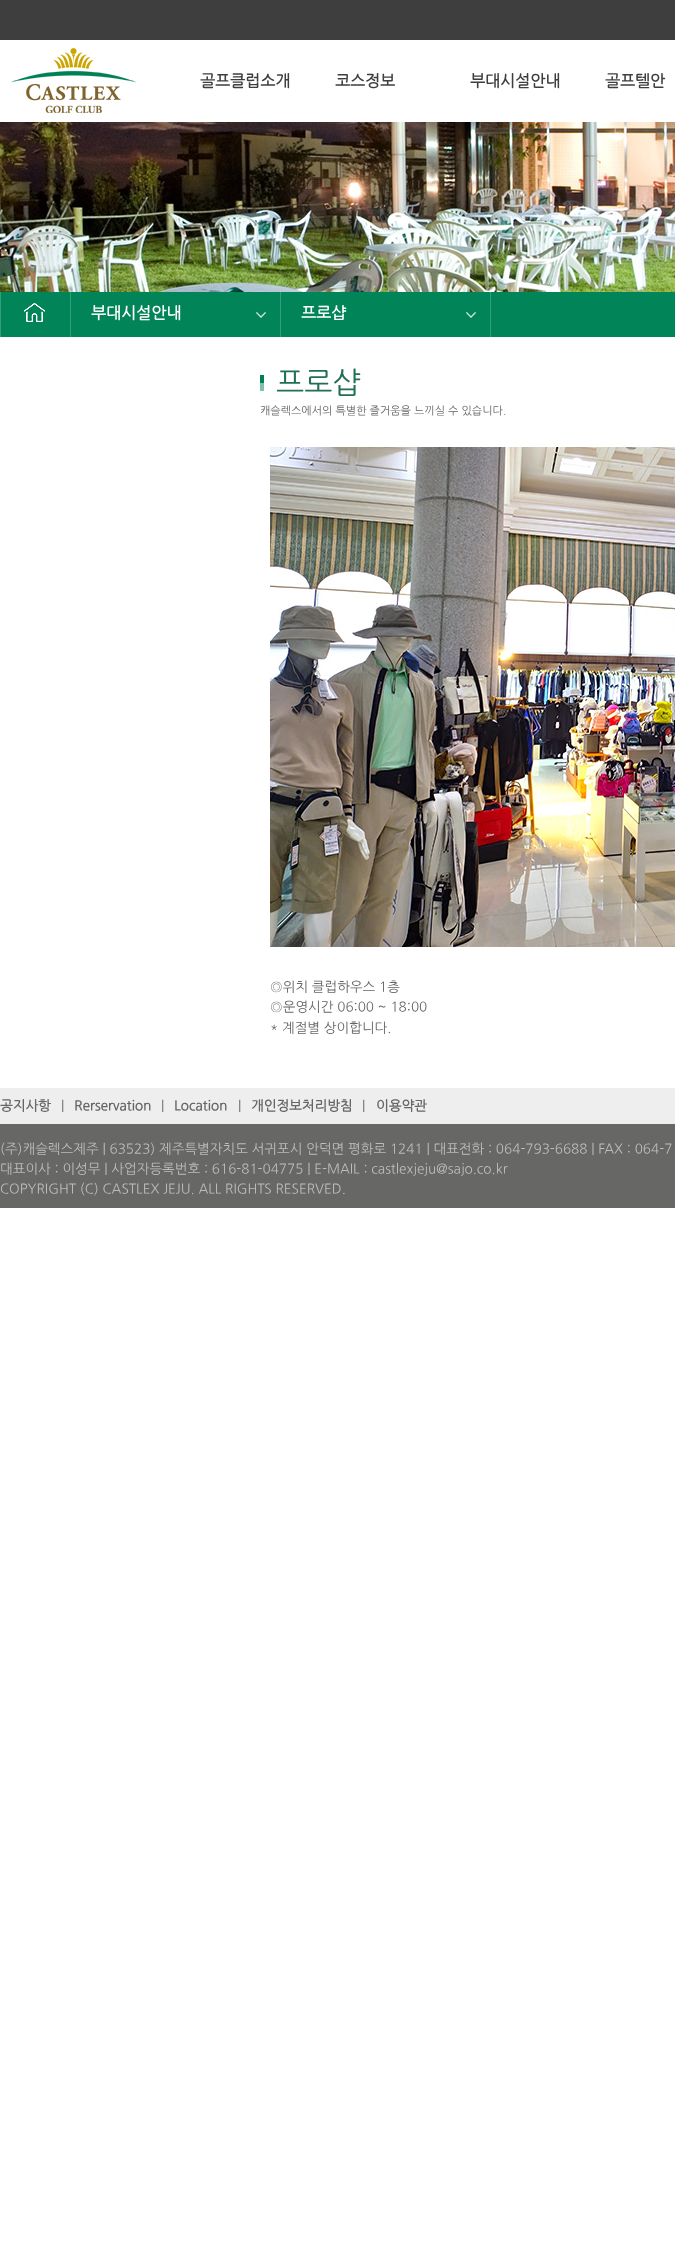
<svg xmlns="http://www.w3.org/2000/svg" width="675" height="2245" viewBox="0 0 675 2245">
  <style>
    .t1 { font: bold 16px NanumGothic; fill: #3e3e3e; }
    .t2 { font: bold 16px NanumGothic; fill: #fff; }
    .t3 { font: 30px NanumGothic; fill: #227053; }
    .t4 { font: 11px NanumGothic; fill: #666; }
    .t5 { font: 13.5px NanumGothic; fill: #666; }
    .t6 { font: bold 13.5px NanumGothic; fill: #666; }
    .t7 { font: 13.5px NanumGothic; fill: #bdbdbc; }
  </style>
  <rect width="100%" height="100%" fill="#fff"/>
  <rect x="0" y="0" width="675" height="40" fill="#3e3e3e"/>
  <image x="11" y="48" width="125" height="65" href="images/1.png"/>
  <text x="200" y="86" class="t1">골프클럽소개</text>
  <text x="335" y="86" class="t1">코스정보</text>
  <text x="470" y="86" class="t1">부대시설안내</text>
  <text x="605" y="86" class="t1">골프텔안</text>
  <image x="0" y="122" width="675" height="170" href="images/2.png"/>
  <rect x="1" y="292" width="674" height="45" fill="#018458"/>
  <rect x="0" y="292" width="1" height="45" fill="#349d79"/>
  <rect x="70" y="292" width="1" height="45" fill="#349d79"/>
  <image x="24" y="303" width="21" height="19" href="images/3.png"/>
  <rect x="280" y="292" width="1" height="45" fill="#349d79"/>
  <image x="256" y="312" width="10" height="6" href="images/4.png"/>
  <text x="91" y="318" class="t2">부대시설안내</text>
  <rect x="490" y="292" width="1" height="45" fill="#349d79"/>
  <image x="466" y="312" width="10" height="6" href="images/4.png"/>
  <text x="301" y="318" class="t2">프로샵</text>
  <image x="260" y="375" width="4" height="16" href="images/5.png"/>
  <text x="276" y="392" class="t3">프로샵</text>
  <text x="260" y="414" class="t4">캐슬렉스에서의 특별한 즐거움을 느끼실 수 있습니다.</text>
  <image x="270" y="447" width="405" height="500" href="images/6.png"/>
  <text x="270" y="991" class="t5">◎위치 클럽하우스 1층</text>
  <text x="270" y="1011" class="t5">◎운영시간 06:00 ~ 18:00</text>
  <text x="270" y="1032" class="t5">* 계절별 상이합니다.</text>
  <rect x="0" y="1124" width="675" height="84" fill="#676765"/>
  <rect x="0" y="1088" width="675" height="36" fill="#eee"/>
  <text x="0" y="1110" class="t6">공지사항</text>
  <text x="61" y="1110" class="t5">|</text>
  <text x="74" y="1110" class="t6">Rerservation</text>
  <text x="161" y="1110" class="t5">|</text>
  <text x="174" y="1110" class="t6">Location</text>
  <text x="238" y="1110" class="t5">|</text>
  <text x="251" y="1110" class="t6">개인정보처리방침</text>
  <text x="362" y="1110" class="t5">|</text>
  <text x="376" y="1110" class="t6">이용약관</text>
  <text x="0" y="1153" class="t7">(주)캐슬렉스제주 | 63523) 제주특별자치도 서귀포시 안덕면 평화로 1241 | 대표전화 : 064-793-6688 | FAX : 064-7</text>
  <text x="0" y="1173" class="t7">대표이사 : 이성무 | 사업자등록번호 : 616-81-04775 | E-MAIL : castlexjeju@sajo.co.kr</text>
  <text x="0" y="1193" class="t7">COPYRIGHT (C) CASTLEX JEJU. ALL RIGHTS RESERVED.</text>
</svg>
